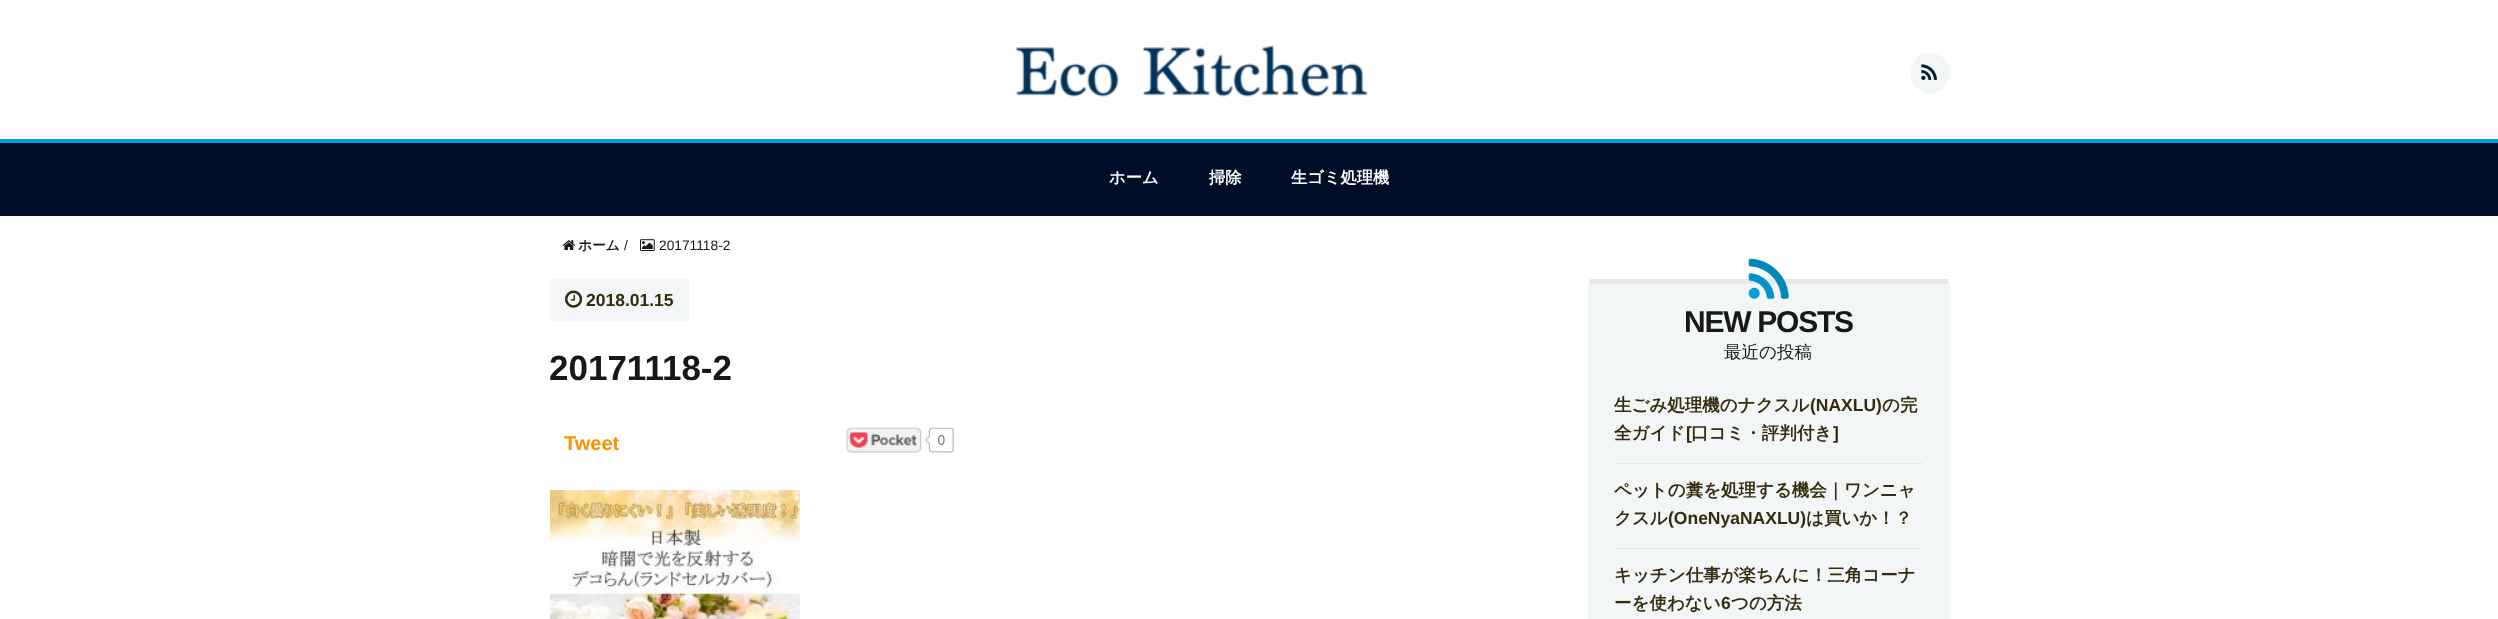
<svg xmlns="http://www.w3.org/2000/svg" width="2498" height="619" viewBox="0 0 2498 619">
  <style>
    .t1 { font: bold 16.25px WenQuanYi Zen Hei; fill: #fff; }
    .t2 { font: bold 13.75px WenQuanYi Zen Hei; fill: #181818; }
    .t3 { font: 13.75px Liberation Sans; fill: #181818; }
    .t4 { font: bold 17.5px Liberation Sans; fill: #362c0d; }
    .t5 { font: bold 35px Liberation Sans; fill: #181818; }
    .t6 { font: bold 20px Liberation Sans; fill: #f69400; }
    .t7 { font: bold 30px Liberation Sans; letter-spacing: -1.25px; fill: #181818; }
    .t8 { font: 500 17.5px WenQuanYi Zen Hei; fill: #181818; }
    .t9 { font: bold 17.5px WenQuanYi Zen Hei; fill: #362c0d; }
  </style>
  <rect width="100%" height="100%" fill="#fff"/>
  <image x="1015" y="45" width="353" height="52" href="images/1.png"/>
  <circle cx="1930" cy="73" r="20" fill="#f3f6f7"/>
  <image x="1921" y="64" width="16" height="16" href="images/2.png"/>
  <rect x="0" y="143" width="2498" height="73" fill="#000d28"/>
  <rect x="0" y="139" width="2498" height="4" fill="#009fd7"/>
  <text x="1109" y="183" class="t1">ホーム</text>
  <text x="1209" y="183" class="t1">掃除</text>
  <text x="1291" y="183" class="t1">生ゴミ処理機</text>
  <image x="562" y="240" width="13" height="10" href="images/3.png"/>
  <text x="578" y="250" class="t2">ホーム</text>
  <text x="624" y="250" class="t3">/</text>
  <image x="640" y="239" width="15" height="12" href="images/4.png"/>
  <text x="659" y="250" class="t3">20171118-2</text>
  <rect x="550" y="279" width="139" height="42" fill="#f3f6f7"/>
  <image x="565" y="290" width="18" height="18" href="images/5.png"/>
  <text x="586" y="306" class="t4">2018.01.15</text>
  <text x="549" y="380" class="t5">20171118-2</text>
  <text x="564" y="450" class="t6">Tweet</text>
  <image x="846" y="427" width="108" height="26" href="images/6.png"/>
  <image x="550" y="490" width="250" height="129" href="images/7.png"/>
  <rect x="1588" y="279" width="362" height="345" rx="5" fill="#f3f6f7"/>
  <rect x="1590" y="279" width="358" height="5" fill="#e6e9e9"/>
  <image x="1748" y="258" width="41" height="41" href="images/8.png"/>
  <text x="1684" y="332" class="t7">NEW POSTS</text>
  <text x="1724" y="358" class="t8">最近の投稿</text>
  <text x="1614" y="411" class="t9">生ごみ処理機のナクスル</text>
  <text x="1810" y="411" class="t4">(NAXLU)</text>
  <text x="1882" y="411" class="t9">の完</text>
  <text x="1614" y="439" class="t9">全ガイド</text>
  <text x="1686" y="439" class="t4">[</text>
  <text x="1691" y="439" class="t9">口コミ・評判付き</text>
  <text x="1833" y="439" class="t4">]</text>
  <rect x="1615" y="463" width="308" height="1" fill="#e6e9e9"/>
  <text x="1614" y="496" class="t9">ペットの糞を処理する機会｜ワンニャ</text>
  <text x="1614" y="524" class="t9">クスル</text>
  <text x="1668" y="524" class="t4">(OneNyaNAXLU)</text>
  <text x="1806" y="524" class="t9">は買いか！？</text>
  <rect x="1615" y="548" width="308" height="1" fill="#e6e9e9"/>
  <text x="1614" y="581" class="t9">キッチン仕事が楽ちんに！三角コーナ</text>
  <text x="1614" y="609" class="t9">ーを使わない</text>
  <text x="1721" y="609" class="t4">6</text>
  <text x="1731" y="609" class="t9">つの方法</text>
</svg>
